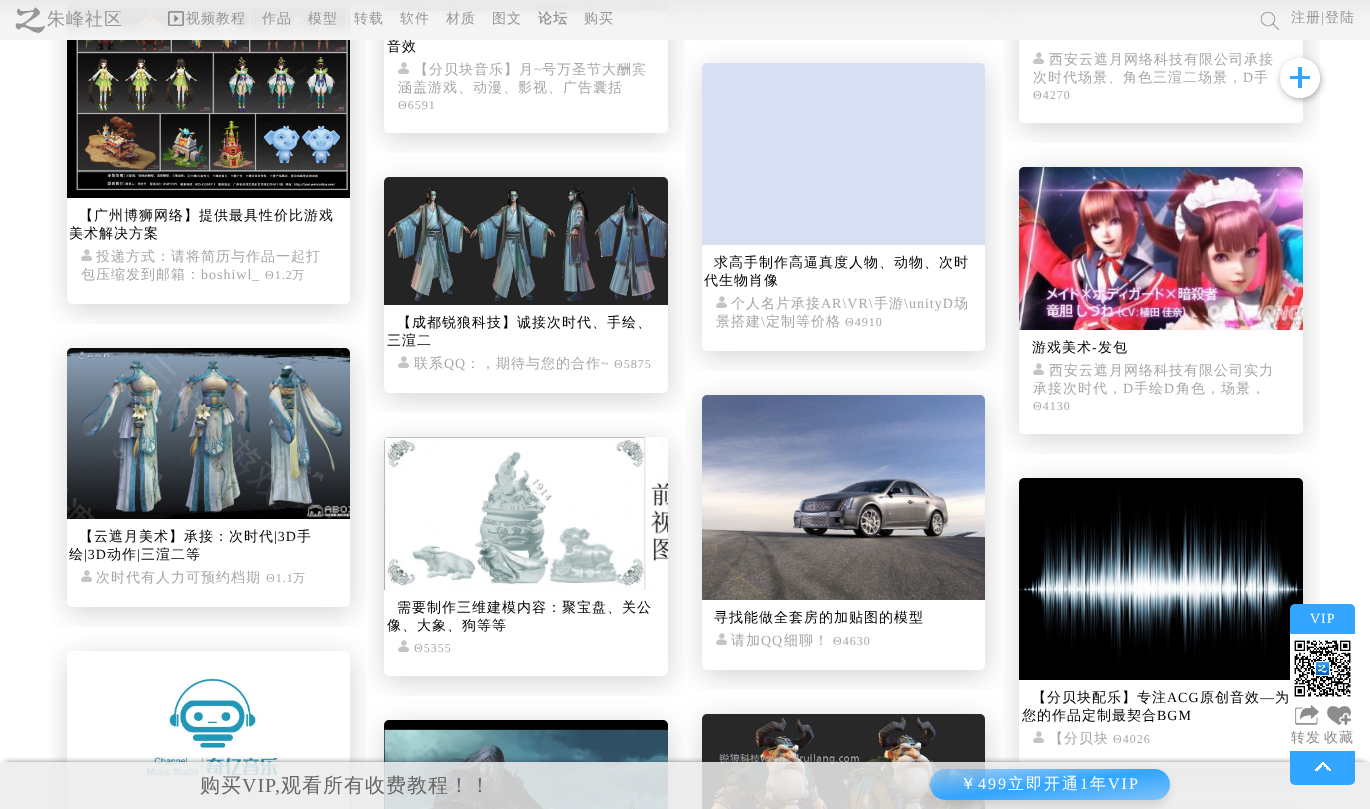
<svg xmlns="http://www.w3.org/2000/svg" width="1370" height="809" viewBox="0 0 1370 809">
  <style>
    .t1 { font: 500 14px WenQuanYi Zen Hei; letter-spacing: 1px; fill: #000; }
    .t2 { font: 500 18px WenQuanYi Zen Hei; letter-spacing: 1px; fill: #979797; }
    .t3 { font: 500 14px WenQuanYi Zen Hei; letter-spacing: 1px; fill: #979797; }
    .t4 { font: bold 14px WenQuanYi Zen Hei; letter-spacing: 1px; fill: #979797; }
    .t5 { font: 14px Liberation Serif; letter-spacing: 1px; fill: #979797; }
    .t6 { font: 500 14px WenQuanYi Zen Hei; letter-spacing: 1px; fill: #a7a7a7; }
    .t7 { font: 14px Liberation Serif; letter-spacing: 1px; fill: #a7a7a7; }
    .t8 { font: 12px Liberation Serif; letter-spacing: 1px; fill: #a7a7a7; }
    .t9 { font: 500 12px WenQuanYi Zen Hei; letter-spacing: 1px; fill: #a7a7a7; }
    .t10 { font: 14px Liberation Serif; letter-spacing: 1px; fill: #000; }
    .t11 { font: 14px Liberation Serif; letter-spacing: 1px; fill: #fff; }
    .t12 { font: 500 14px WenQuanYi Zen Hei; letter-spacing: 1px; fill: #8c8c8c; }
    .t13 { font: 500 20px WenQuanYi Zen Hei; letter-spacing: 1px; fill: #666; }
    .t14 { font: 20px Liberation Serif; letter-spacing: 1px; fill: #666; }
    .t15 { font: 500 16px WenQuanYi Zen Hei; letter-spacing: 2px; fill: #fff; }
    .t16 { font: 16px Liberation Serif; letter-spacing: 2px; fill: #fff; }
  </style>
  <defs>
    <clipPath id="clip1"><rect x="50" y="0" width="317" height="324"/></clipPath>
    <clipPath id="clip2"><rect x="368" y="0" width="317" height="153"/></clipPath>
    <clipPath id="clip3"><rect x="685" y="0" width="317" height="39"/></clipPath>
    <clipPath id="clip4"><rect x="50" y="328" width="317" height="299"/></clipPath>
    <clipPath id="clip5"><rect x="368" y="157" width="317" height="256"/></clipPath>
    <clipPath id="clip6"><rect x="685" y="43" width="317" height="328"/></clipPath>
    <clipPath id="clip7"><rect x="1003" y="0" width="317" height="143"/></clipPath>
    <linearGradient id="g1" gradientUnits="userSpaceOnUse" x1="685" y1="0" x2="685" y2="40"><stop offset="0" stop-color="#eaeaea"/><stop offset="0.5" stop-color="#f3f3f3" stop-opacity="0.94"/><stop offset="1" stop-color="#f5f5f5"/></linearGradient>
    <clipPath id="clip8"><rect x="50" y="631" width="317" height="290"/></clipPath>
    <clipPath id="clip9"><rect x="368" y="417" width="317" height="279"/></clipPath>
    <clipPath id="clip10"><rect x="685" y="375" width="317" height="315"/></clipPath>
    <clipPath id="clip11"><rect x="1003" y="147" width="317" height="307"/></clipPath>
    <clipPath id="clip12"><rect x="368" y="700" width="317" height="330"/></clipPath>
    <clipPath id="clip13"><rect x="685" y="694" width="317" height="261"/></clipPath>
    <clipPath id="clip14"><rect x="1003" y="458" width="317" height="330"/></clipPath>
    <clipPath id="clip15"><rect x="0" y="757" width="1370" height="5"/></clipPath>
    <clipPath id="clip16"><path d="M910 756H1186V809H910ZM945.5 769H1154.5C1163 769 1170 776 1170 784.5C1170 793 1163 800 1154.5 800H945.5C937 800 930 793 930 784.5C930 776 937 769 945.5 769Z" clip-rule="evenodd"/></clipPath>
    <linearGradient id="g2" gradientUnits="userSpaceOnUse" x1="1046" y1="754" x2="1054" y2="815"><stop offset="0" stop-color="#32a5ff" stop-opacity="0.37"/><stop offset="0.5" stop-color="#32a5ff"/><stop offset="1" stop-color="#32a5ff" stop-opacity="0.59"/></linearGradient>
  </defs>
  <rect width="100%" height="100%" fill="#fff"/>
  <g clip-path="url(#clip1)">
    <rect x="68" y="-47" width="283" height="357" rx="5" fill="#0000002b" filter="blur(14px)"/>
  </g>
  <rect x="67" y="-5" width="283" height="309" rx="5" fill="#fff"/>
  <image x="67" y="2" width="283" height="196" href="images/6.png"/>
  <g clip-path="url(#clip2)">
    <rect x="385" y="-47" width="284" height="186" rx="5" fill="#0000002b" filter="blur(14px)"/>
  </g>
  <rect x="384" y="-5" width="284" height="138" rx="5" fill="#fff"/>
  <image x="384" y="2" width="284" height="9" href="images/4.png"/>
  <text x="387" y="51" class="t1">音效</text>
  <g clip-path="url(#clip3)">
    <rect x="703" y="-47" width="283" height="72" rx="5" fill="#0000002b" filter="blur(14px)"/>
  </g>
  <rect x="702" y="-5" width="283" height="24" rx="5" fill="#fff"/>
  <g clip-path="url(#clip4)">
    <rect x="68" y="354" width="283" height="259" rx="5" fill="#0000002b" filter="blur(14px)"/>
  </g>
  <rect x="67" y="348" width="283" height="259" rx="5" fill="#fff"/>
  <image x="67" y="348" width="283" height="171" href="images/10.png"/>
  <g clip-path="url(#clip5)">
    <rect x="385" y="183" width="284" height="216" rx="5" fill="#0000002b" filter="blur(14px)"/>
  </g>
  <rect x="384" y="177" width="284" height="216" rx="5" fill="#fff"/>
  <image x="384" y="177" width="284" height="128" href="images/8.png"/>
  <g clip-path="url(#clip6)">
    <rect x="703" y="69" width="283" height="288" rx="5" fill="#0000002b" filter="blur(14px)"/>
  </g>
  <rect x="702" y="63" width="283" height="288" rx="5" fill="#fff"/>
  <image x="702" y="63" width="283" height="182" href="images/7.png"/>
  <g clip-path="url(#clip7)">
    <rect x="1020" y="-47" width="284" height="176" rx="5" fill="#0000002b" filter="blur(14px)"/>
  </g>
  <rect x="1019" y="-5" width="284" height="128" rx="5" fill="#fff"/>
  <rect x="0" y="0" width="1370" height="40" fill="url(#g1)"/>
  <image x="15" y="7" width="31" height="26" href="images/1.png"/>
  <text x="47" y="25" class="t2">朱峰社区</text>
  <image x="168" y="11" width="16" height="15" href="images/2.png"/>
  <text x="186" y="23" class="t3">视频教程</text>
  <text x="262" y="23" class="t3">作品</text>
  <text x="308" y="23" class="t3">模型</text>
  <text x="354" y="23" class="t3">转载</text>
  <text x="400" y="23" class="t3">软件</text>
  <text x="446" y="23" class="t3">材质</text>
  <text x="492" y="23" class="t3">图文</text>
  <text x="538" y="23" class="t4">论坛</text>
  <text x="584" y="23" class="t3">购买</text>
  <image x="1260" y="11" width="20" height="20" href="images/3.png"/>
  <text x="1291" y="22" class="t3">注册</text>
  <text x="1321" y="22" class="t5">|</text>
  <text x="1325" y="22" class="t3">登陆</text>
  <image x="398" y="62" width="11" height="12" href="images/5.png"/>
  <text x="414" y="74" class="t6">【分贝块音乐】月</text>
  <text x="534" y="74" class="t7">~</text>
  <text x="542" y="74" class="t6">号万圣节大酬宾</text>
  <text x="398" y="92" class="t6">涵盖游戏、动漫、影视、广告囊括</text>
  <text x="398" y="109" class="t8">Θ6591</text>
  <image x="1033" y="52" width="11" height="12" href="images/5.png"/>
  <text x="1049" y="64" class="t6">西安云遮月网络科技有限公司承接</text>
  <text x="1033" y="82" class="t6">次时代场景、角色三渲二场景，</text>
  <text x="1243" y="82" class="t7">D</text>
  <text x="1254" y="82" class="t6">手</text>
  <text x="1033" y="99" class="t8">Θ4270</text>
  <text x="79" y="220" class="t1">【广州博狮网络】提供最具性价比游戏</text>
  <text x="69" y="238" class="t1">美术解决方案</text>
  <image x="81" y="249" width="11" height="12" href="images/5.png"/>
  <text x="96" y="261" class="t6">投递方式：请将简历与作品一起打</text>
  <text x="81" y="279" class="t6">包压缩发到邮箱：</text>
  <text x="201" y="279" class="t7">boshiwl_</text>
  <text x="265" y="279" class="t8">Θ1.2</text>
  <text x="292" y="279" class="t9">万</text>
  <text x="714" y="267" class="t1">求高手制作高逼真度人物、动物、次时</text>
  <text x="704" y="285" class="t1">代生物肖像</text>
  <image x="716" y="296" width="11" height="12" href="images/5.png"/>
  <text x="731" y="308" class="t6">个人名片承接</text>
  <text x="821" y="308" class="t7">AR\VR\</text>
  <text x="874" y="308" class="t6">手游</text>
  <text x="904" y="308" class="t7">\unityD</text>
  <text x="954" y="308" class="t6">场</text>
  <text x="716" y="326" class="t6">景搭建</text>
  <text x="761" y="326" class="t7">\</text>
  <text x="766" y="326" class="t6">定制等价格</text>
  <text x="845" y="326" class="t8">Θ4910</text>
  <text x="397" y="327" class="t1">【成都锐狼科技】诚接次时代、手绘、</text>
  <text x="387" y="345" class="t1">三渲二</text>
  <image x="398" y="356" width="11" height="12" href="images/5.png"/>
  <text x="414" y="368" class="t6">联系</text>
  <text x="444" y="368" class="t7">QQ</text>
  <text x="466" y="368" class="t6">：，期待与您的合作</text>
  <text x="601" y="368" class="t7">~</text>
  <text x="614" y="368" class="t8">Θ5875</text>
  <g clip-path="url(#clip8)">
    <rect x="68" y="657" width="283" height="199" rx="5" fill="#0000002b" filter="blur(14px)"/>
  </g>
  <rect x="67" y="651" width="283" height="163" rx="5" fill="#fff"/>
  <g clip-path="url(#clip9)">
    <rect x="385" y="443" width="284" height="239" rx="5" fill="#0000002b" filter="blur(14px)"/>
  </g>
  <rect x="384" y="437" width="284" height="239" rx="5" fill="#fff"/>
  <image x="384" y="437" width="284" height="153" href="images/12.png"/>
  <g clip-path="url(#clip10)">
    <rect x="703" y="401" width="283" height="275" rx="5" fill="#0000002b" filter="blur(14px)"/>
  </g>
  <rect x="702" y="395" width="283" height="275" rx="5" fill="#fff"/>
  <image x="702" y="395" width="283" height="205" href="images/13.png"/>
  <g clip-path="url(#clip11)">
    <rect x="1020" y="173" width="284" height="267" rx="5" fill="#0000002b" filter="blur(14px)"/>
  </g>
  <rect x="1019" y="167" width="284" height="267" rx="5" fill="#fff"/>
  <image x="1019" y="167" width="284" height="163" href="images/9.png"/>
  <text x="1032" y="352" class="t1">游戏美术</text>
  <text x="1092" y="352" class="t10">-</text>
  <text x="1098" y="352" class="t1">发包</text>
  <image x="1033" y="363" width="11" height="12" href="images/5.png"/>
  <text x="1049" y="375" class="t6">西安云遮月网络科技有限公司实力</text>
  <text x="1033" y="393" class="t6">承接次时代，</text>
  <text x="1123" y="393" class="t7">D</text>
  <text x="1134" y="393" class="t6">手绘</text>
  <text x="1164" y="393" class="t7">D</text>
  <text x="1176" y="393" class="t6">角色，场景，</text>
  <text x="1033" y="410" class="t8">Θ4130</text>
  <text x="79" y="541" class="t1">【云遮月美术】承接：次时代</text>
  <text x="274" y="541" class="t10">|3D</text>
  <text x="297" y="541" class="t1">手</text>
  <text x="69" y="559" class="t1">绘</text>
  <text x="84" y="559" class="t10">|3D</text>
  <text x="107" y="559" class="t1">动作</text>
  <text x="137" y="559" class="t10">|</text>
  <text x="141" y="559" class="t1">三渲二等</text>
  <image x="81" y="570" width="11" height="12" href="images/5.png"/>
  <text x="96" y="582" class="t6">次时代有人力可预约档期</text>
  <text x="266" y="582" class="t8">Θ1.1</text>
  <text x="293" y="582" class="t9">万</text>
  <image x="146" y="677" width="134" height="101" href="images/11.png"/>
  <text x="397" y="612" class="t1">需要制作三维建模内容：聚宝盘、关公</text>
  <text x="387" y="630" class="t1">像、大象、狗等等</text>
  <image x="398" y="640" width="11" height="12" href="images/5.png"/>
  <text x="414" y="652" class="t8">Θ5355</text>
  <text x="714" y="622" class="t1">寻找能做全套房的加贴图的模型</text>
  <image x="716" y="633" width="11" height="12" href="images/5.png"/>
  <text x="731" y="645" class="t6">请加</text>
  <text x="761" y="645" class="t7">QQ</text>
  <text x="784" y="645" class="t6">细聊！</text>
  <text x="833" y="645" class="t8">Θ4630</text>
  <g clip-path="url(#clip12)">
    <rect x="385" y="726" width="284" height="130" rx="5" fill="#0000002b" filter="blur(14px)"/>
  </g>
  <image x="384" y="720" width="284" height="89" href="images/14.png"/>
  <g clip-path="url(#clip13)">
    <rect x="703" y="720" width="283" height="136" rx="5" fill="#0000002b" filter="blur(14px)"/>
  </g>
  <image x="702" y="714" width="283" height="95" href="images/15.png"/>
  <g clip-path="url(#clip14)">
    <rect x="1020" y="484" width="284" height="290" rx="5" fill="#0000002b" filter="blur(14px)"/>
  </g>
  <rect x="1019" y="478" width="284" height="290" rx="5" fill="#fff"/>
  <image x="1019" y="478" width="284" height="202" href="images/16.png"/>
  <text x="1032" y="702" class="t1">【分贝块配乐】专注</text>
  <text x="1167" y="702" class="t10">ACG</text>
  <text x="1200" y="702" class="t1">原创音效</text>
  <text x="1260" y="702" class="t10">—</text>
  <text x="1275" y="702" class="t1">为</text>
  <text x="1022" y="720" class="t1">您的作品定制最契合</text>
  <text x="1157" y="720" class="t10">BGM</text>
  <image x="1033" y="731" width="11" height="12" href="images/5.png"/>
  <text x="1049" y="743" class="t6">【分贝块</text>
  <text x="1113" y="743" class="t8">Θ4026</text>
  <rect x="1020" y="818" width="284" height="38" rx="5" fill="#0000002b" filter="blur(14px)"/>
  <rect x="1283" y="62" width="36" height="36" rx="18" fill="#777" filter="blur(4px)"/>
  <circle cx="1300" cy="78" r="20" fill="#fff"/>
  <image x="1281" y="58" width="39" height="40" href="images/17.png"/>
  <g clip-path="url(#clip15)">
    <rect x="5" y="764" width="1360" height="37" fill="#272727" filter="blur(3.5px)"/>
  </g>
  <rect x="0" y="762" width="1370" height="47" fill="#ebebebdb"/>
  <rect x="1290" y="604" width="65" height="181" rx="5" fill="#31a5ff"/>
  <text x="1310" y="623" class="t11">VIP</text>
  <rect x="1290" y="634" width="65" height="117" fill="#fff"/>
  <image x="1294" y="640" width="57" height="57" href="images/18.png"/>
  <image x="1295" y="705" width="24" height="20" href="images/19.png"/>
  <text x="1291" y="742" class="t12">转发</text>
  <image x="1327" y="706" width="24" height="19" href="images/20.png"/>
  <text x="1324" y="742" class="t12">收藏</text>
  <image x="1315" y="762" width="16" height="9" href="images/21.png"/>
  <text x="200" y="792" class="t13">购买</text>
  <text x="242" y="792" class="t14">VIP,</text>
  <text x="281" y="792" class="t13">观看所有收费教程！！</text>
  <g clip-path="url(#clip16)">
    <rect x="928" y="774" width="240" height="31" rx="15.5" fill="#00000021" filter="blur(5.5px)"/>
  </g>
  <rect x="930" y="769" width="240" height="31" rx="15.5" fill="url(#g2)"/>
  <text x="960" y="789" class="t15">￥</text>
  <text x="978" y="789" class="t16">499</text>
  <text x="1008" y="789" class="t15">立即开通</text>
  <text x="1080" y="789" class="t16">1</text>
  <text x="1090" y="789" class="t15">年</text>
  <text x="1108" y="789" class="t16">VIP</text>
</svg>
